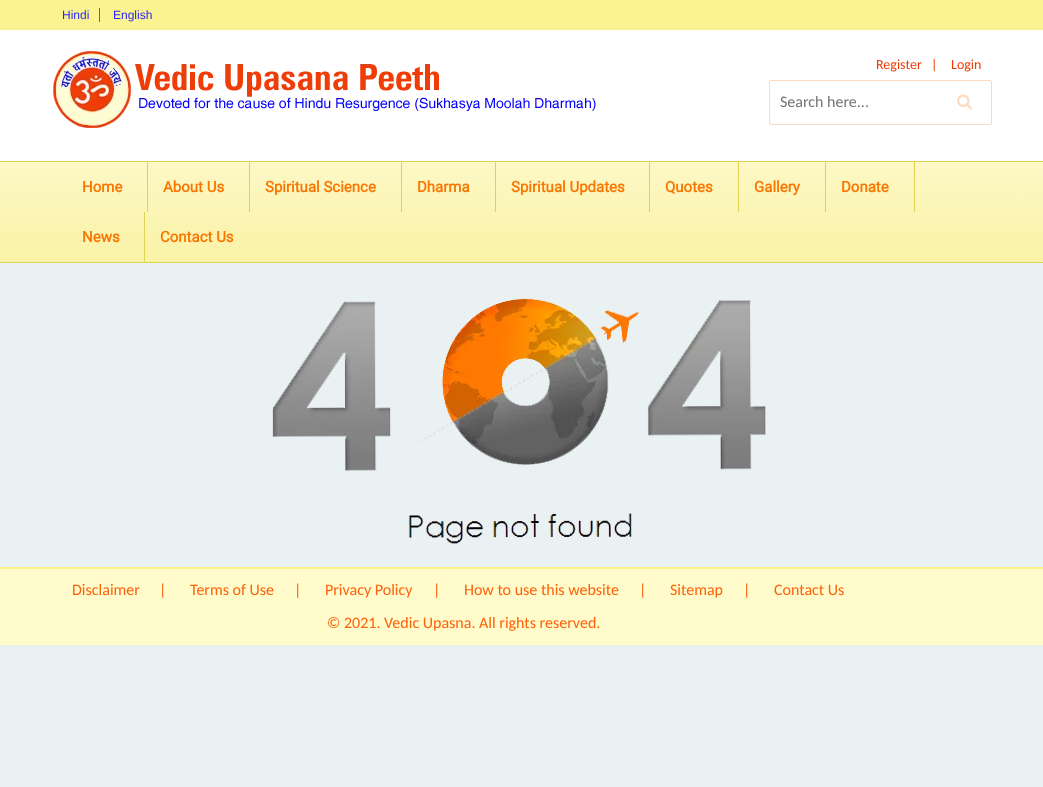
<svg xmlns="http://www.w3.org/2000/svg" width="1043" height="787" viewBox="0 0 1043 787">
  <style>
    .t1 { font: 12px Liberation Sans; fill: #2828f9; }
    .t2 { font: 14px Carlito; fill: #ef3d08; }
    .t3 { font: 16px Carlito; fill: #757575; }
    .t4 { font: bold 15px Roboto; fill: #f97602; }
    .t5 { font: 16px Carlito; fill: #fe610b; }
  </style>
  <defs>
    <linearGradient id="g1" gradientUnits="userSpaceOnUse" x1="522" y1="162" x2="522" y2="262"><stop offset="0" stop-color="#fdf8c6"/><stop offset="1" stop-color="#f9f2a6"/></linearGradient>
  </defs>
  <rect width="100%" height="100%" fill="#e9f1f3"/>
  <rect x="0" y="0" width="1043" height="30" fill="#fbf291"/>
  <text x="62" y="19" class="t1">Hindi</text>
  <rect x="99" y="8" width="1" height="14" fill="#5d5bdf"/>
  <text x="113" y="19" class="t1">English</text>
  <rect x="0" y="30" width="1043" height="131" fill="#fff"/>
  <image x="53" y="50" width="543" height="78" href="images/1.png"/>
  <text x="876" y="69" class="t2">Register</text>
  <text x="931" y="69" class="t2">|</text>
  <text x="951" y="69" class="t2">Login</text>
  <rect x="769.5" y="80.5" width="222" height="44" rx="1.5" fill="none" stroke="#fddabf"/>
  <text x="780" y="107" class="t3">Search here...</text>
  <image x="957" y="94" width="15" height="16" href="images/2.png"/>
  <rect x="0" y="162" width="1043" height="100" fill="url(#g1)"/>
  <rect x="0" y="161" width="1043" height="1" fill="#dfd452"/>
  <rect x="0" y="262" width="1043" height="1" fill="#dfd452"/>
  <rect x="147" y="162" width="1" height="50" fill="#dfd452"/>
  <text x="82" y="192" class="t4">Home</text>
  <rect x="249" y="162" width="1" height="50" fill="#dfd452"/>
  <text x="163" y="192" class="t4">About Us</text>
  <rect x="401" y="162" width="1" height="50" fill="#dfd452"/>
  <text x="265" y="192" class="t4">Spiritual Science</text>
  <rect x="495" y="162" width="1" height="50" fill="#dfd452"/>
  <text x="417" y="192" class="t4">Dharma</text>
  <rect x="649" y="162" width="1" height="50" fill="#dfd452"/>
  <text x="511" y="192" class="t4">Spiritual Updates</text>
  <rect x="738" y="162" width="1" height="50" fill="#dfd452"/>
  <text x="665" y="192" class="t4">Quotes</text>
  <rect x="825" y="162" width="1" height="50" fill="#dfd452"/>
  <text x="754" y="192" class="t4">Gallery</text>
  <rect x="914" y="162" width="1" height="50" fill="#dfd452"/>
  <text x="841" y="192" class="t4">Donate</text>
  <rect x="144" y="212" width="1" height="50" fill="#dfd452"/>
  <text x="82" y="242" class="t4">News</text>
  <text x="160" y="242" class="t4">Contact Us</text>
  <image x="272" y="298" width="494" height="246" href="images/3.png"/>
  <rect x="0" y="569" width="1043" height="76" fill="#fffbca"/>
  <rect x="0" y="567" width="1043" height="2" fill="#fcf389"/>
  <text x="72" y="595" class="t5">Disclaimer</text>
  <text x="159" y="595" class="t5">|</text>
  <text x="190" y="595" class="t5">Terms of Use</text>
  <text x="294" y="595" class="t5">|</text>
  <text x="325" y="595" class="t5">Privacy Policy</text>
  <text x="433" y="595" class="t5">|</text>
  <text x="464" y="595" class="t5">How to use this website</text>
  <text x="639" y="595" class="t5">|</text>
  <text x="670" y="595" class="t5">Sitemap</text>
  <text x="743" y="595" class="t5">|</text>
  <text x="774" y="595" class="t5">Contact Us</text>
  <text x="327" y="628" class="t5">© 2021. Vedic Upasna. All rights reserved.</text>
</svg>
